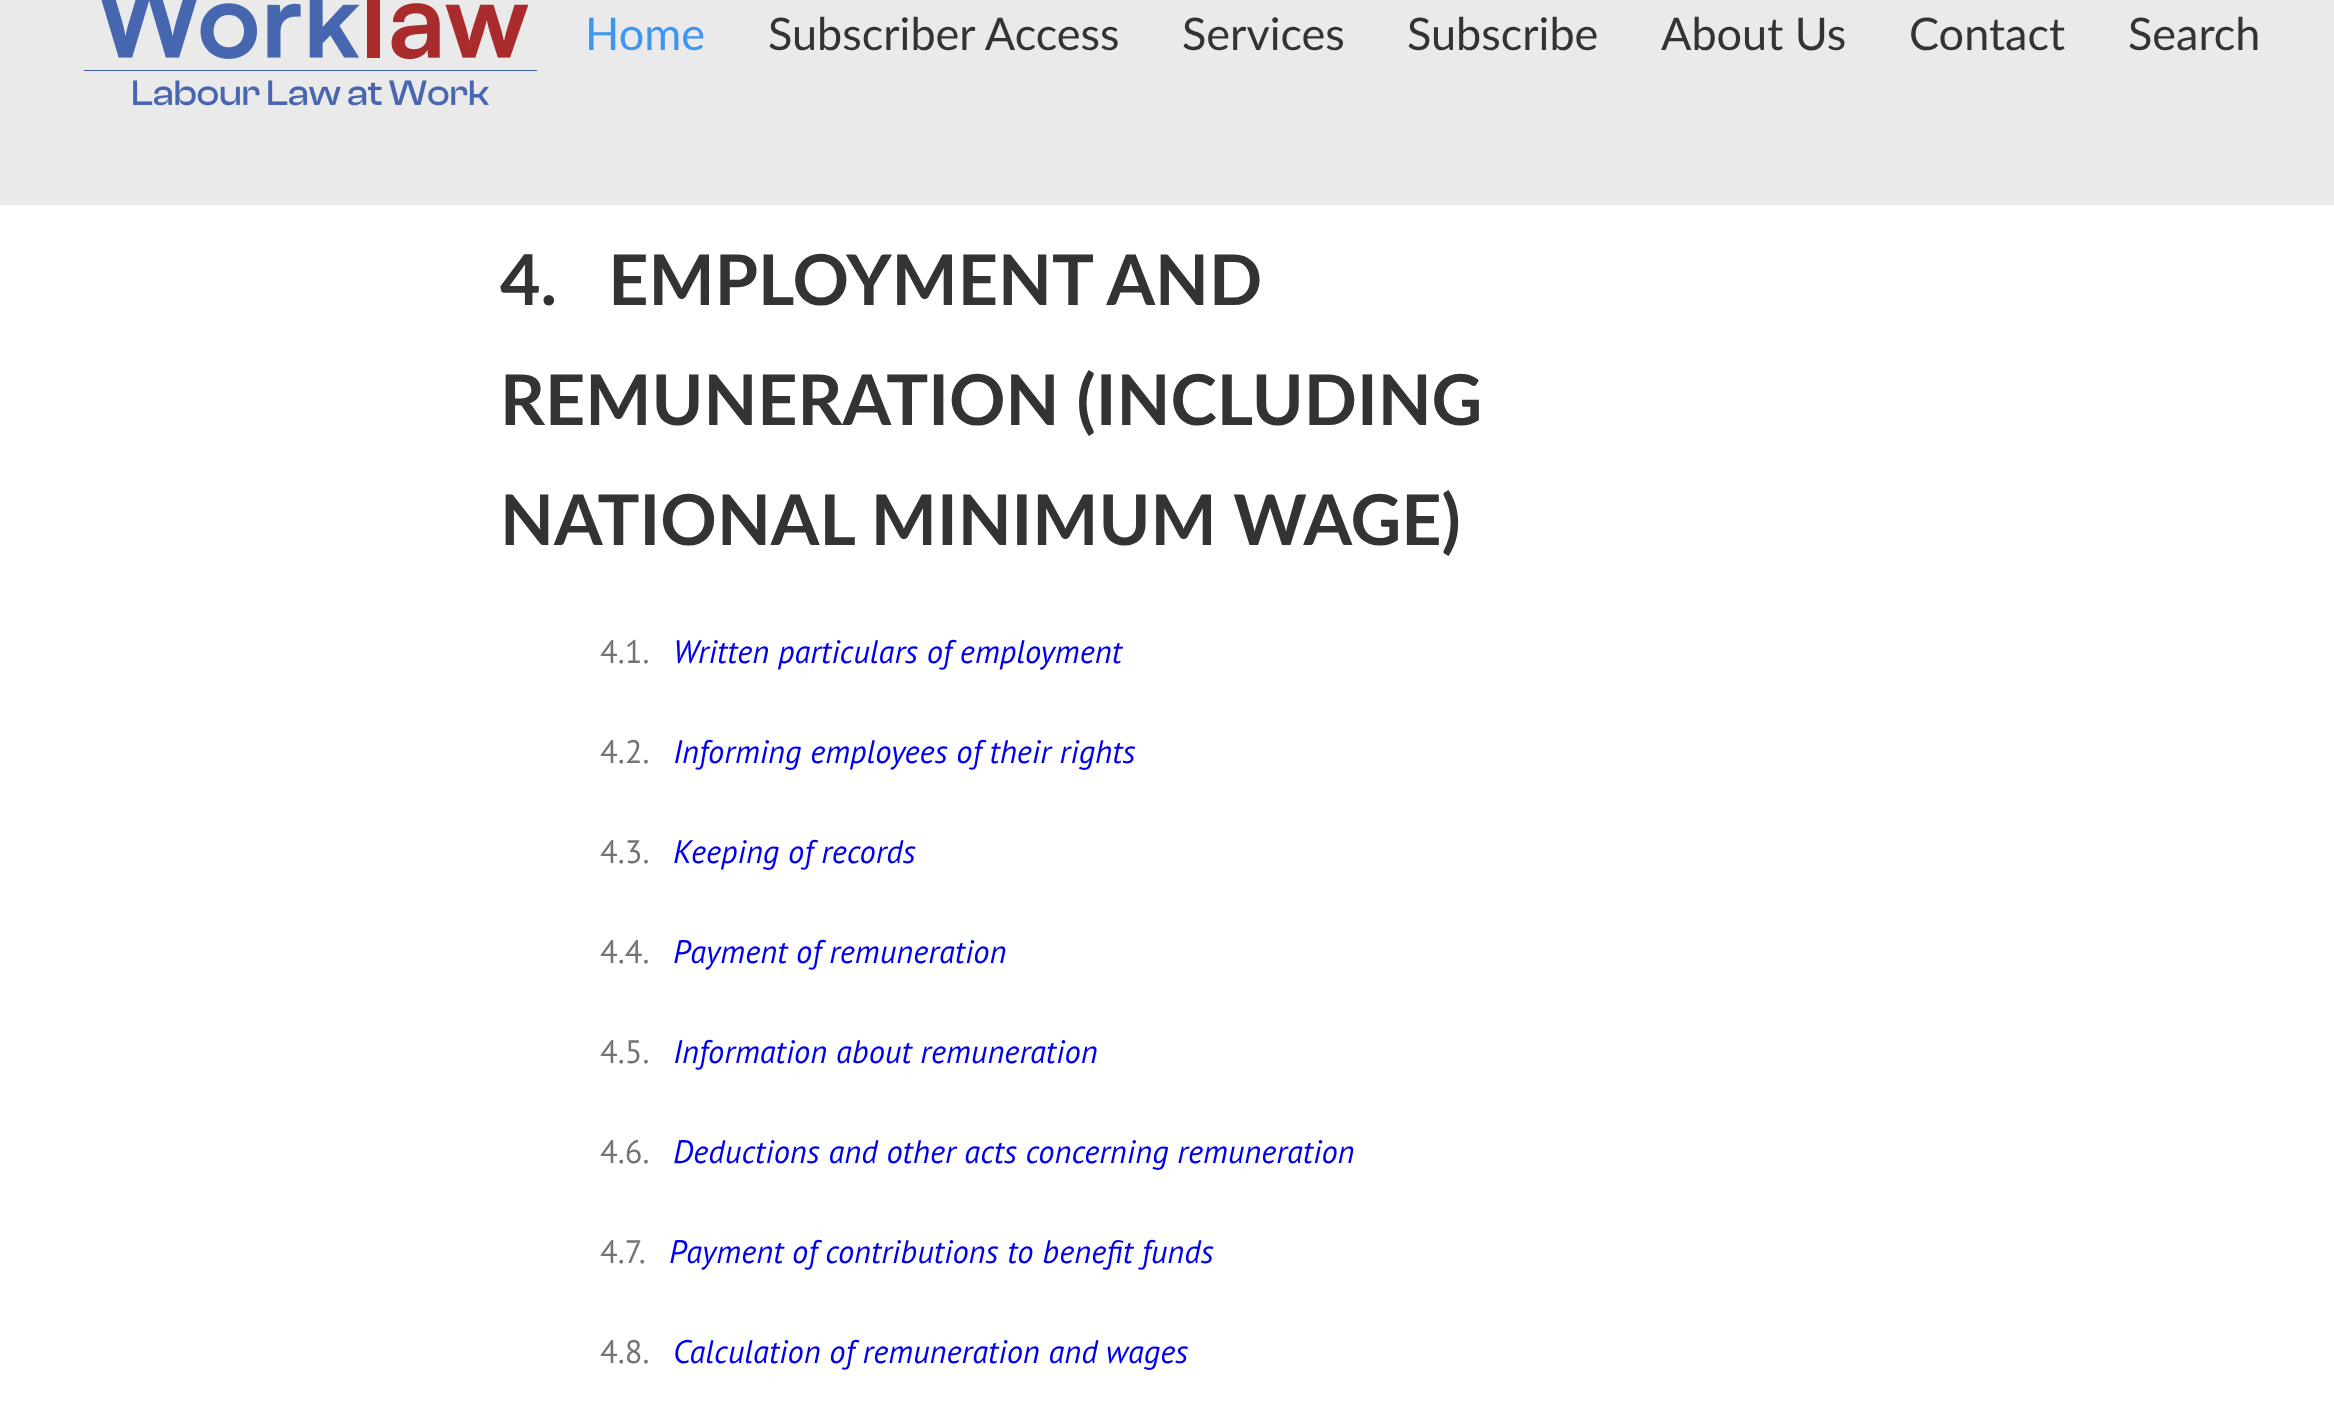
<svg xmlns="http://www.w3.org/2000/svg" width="2334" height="1426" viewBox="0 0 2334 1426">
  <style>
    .t1 { font: 45px Lato; fill: #3e95f2; }
    .t2 { font: 45px Lato; fill: #333; }
    .t3 { font: bold 70px Lato; fill: #333; }
    .t4 { font: 32.5px PT Sans; fill: #747474; }
    .t5 { font: italic 32.5px PT Sans; fill: #00e; }
  </style>
  <rect width="100%" height="100%" fill="#fff"/>
  <rect x="0" y="0" width="2334" height="205" fill="#ebeaea"/>
  <image x="84" y="0" width="453" height="106" href="images/1.png"/>
  <text x="585" y="50" class="t1">Home</text>
  <text x="768" y="50" class="t2">Subscriber Access</text>
  <text x="1182" y="50" class="t2">Services</text>
  <text x="1407" y="50" class="t2">Subscribe</text>
  <text x="1661" y="50" class="t2">About Us</text>
  <text x="1909" y="50" class="t2">Contact</text>
  <text x="2128" y="50" class="t2">Search</text>
  <text x="500" y="305" class="t3" xml:space="preserve">4.   EMPLOYMENT AND</text>
  <text x="500" y="425" class="t3">REMUNERATION (INCLUDING</text>
  <text x="500" y="545" class="t3">NATIONAL MINIMUM WAGE)</text>
  <text x="600" y="663" class="t4">4.1.</text>
  <text x="673" y="663" class="t5">Written particulars of employment</text>
  <text x="600" y="763" class="t4">4.2.</text>
  <text x="673" y="763" class="t5">Informing employees of their rights</text>
  <text x="600" y="863" class="t4">4.3.</text>
  <text x="673" y="863" class="t5">Keeping of records</text>
  <text x="600" y="963" class="t4">4.4.</text>
  <text x="673" y="963" class="t5">Payment of remuneration</text>
  <text x="600" y="1063" class="t4">4.5.</text>
  <text x="673" y="1063" class="t5">Information about remuneration</text>
  <text x="600" y="1163" class="t4">4.6.</text>
  <text x="673" y="1163" class="t5">Deductions and other acts concerning remuneration</text>
  <text x="600" y="1263" class="t4">4.7.</text>
  <text x="669" y="1263" class="t5">Payment of contributions to benefit funds</text>
  <text x="600" y="1363" class="t4">4.8.</text>
  <text x="673" y="1363" class="t5">Calculation of remuneration and wages</text>
</svg>
